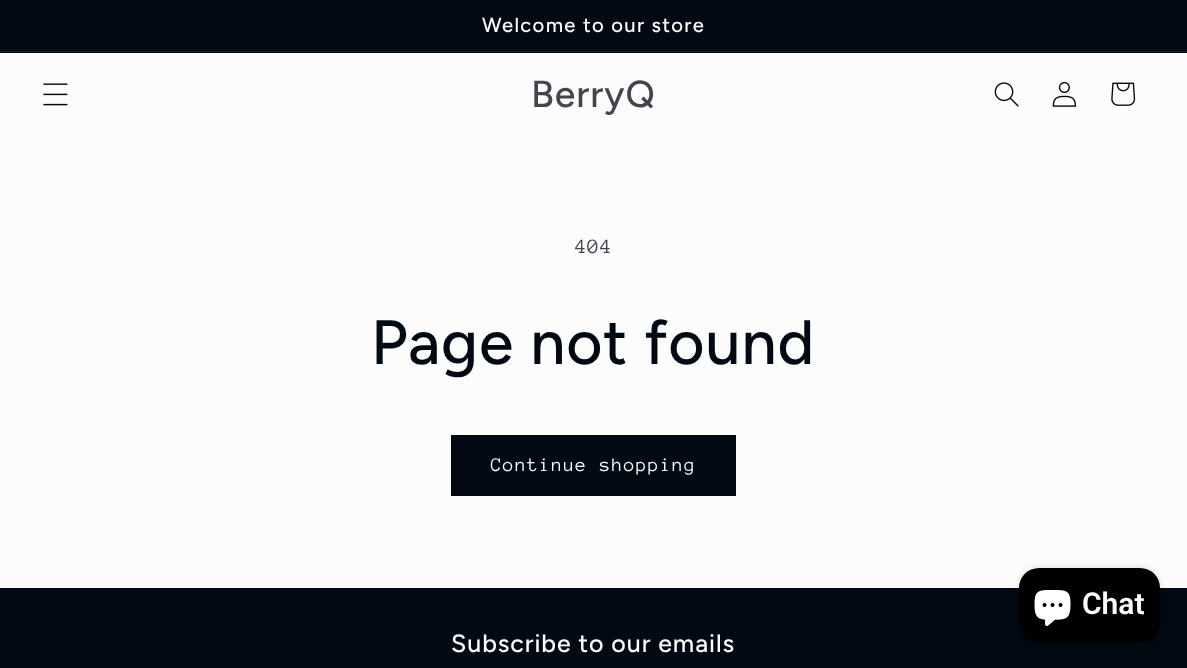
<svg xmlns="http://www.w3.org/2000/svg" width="1187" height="668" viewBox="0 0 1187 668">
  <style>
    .t1 { font: 500 20.25px Figtree; letter-spacing: 1.3px; fill: #fcfcfc; }
    .t2 { font: 500 37.5px Figtree; letter-spacing: 0.9px; fill: #41464d; }
    .t3 { font: 21px Anonymous Pro; letter-spacing: 1px; fill: #41464d; }
    .t4 { font: 500 62.5px Figtree; letter-spacing: 0.9px; fill: #020912; }
    .t5 { font: 19.75px Anonymous Pro; letter-spacing: 1.3px; fill: #fcfcfc; }
    .t6 { font: 600 30px Roboto; fill: #fcfcfc; }
    .t7 { font: 500 25px Figtree; letter-spacing: 0.9px; fill: #fcfcfc; }
  </style>
  <rect width="100%" height="100%" fill="#fcfcfc"/>
  <rect x="0" y="0" width="1187" height="53" fill="#020912"/>
  <rect x="0" y="51" width="1187" height="1" fill="#161c25"/>
  <text x="482" y="32" class="t1">Welcome to our store</text>
  <image x="43" y="83" width="25" height="23" href="images/1.png"/>
  <text x="531" y="107" class="t2">BerryQ</text>
  <image x="994" y="82" width="25" height="25" href="images/2.png"/>
  <image x="1052" y="81" width="25" height="26" href="images/3.png"/>
  <image x="1111" y="82" width="25" height="24" href="images/4.png"/>
  <text x="575" y="253" class="t3">404</text>
  <text x="371" y="364" class="t4">Page not found</text>
  <rect x="451" y="435" width="285" height="61" fill="#020912"/>
  <text x="491" y="471" class="t5">Continue shopping</text>
  <rect x="0" y="588" width="1187" height="80" fill="#020912"/>
  <rect x="1019" y="568" width="141" height="75" rx="20" fill="#00000026" filter="blur(3px)"/>
  <rect x="1019" y="568" width="141" height="75" rx="20" fill="#000"/>
  <image x="1034" y="590" width="37" height="36" href="images/5.png"/>
  <text x="1082" y="614" class="t6">Chat</text>
  <text x="451" y="652" class="t7">Subscribe to our emails</text>
</svg>
